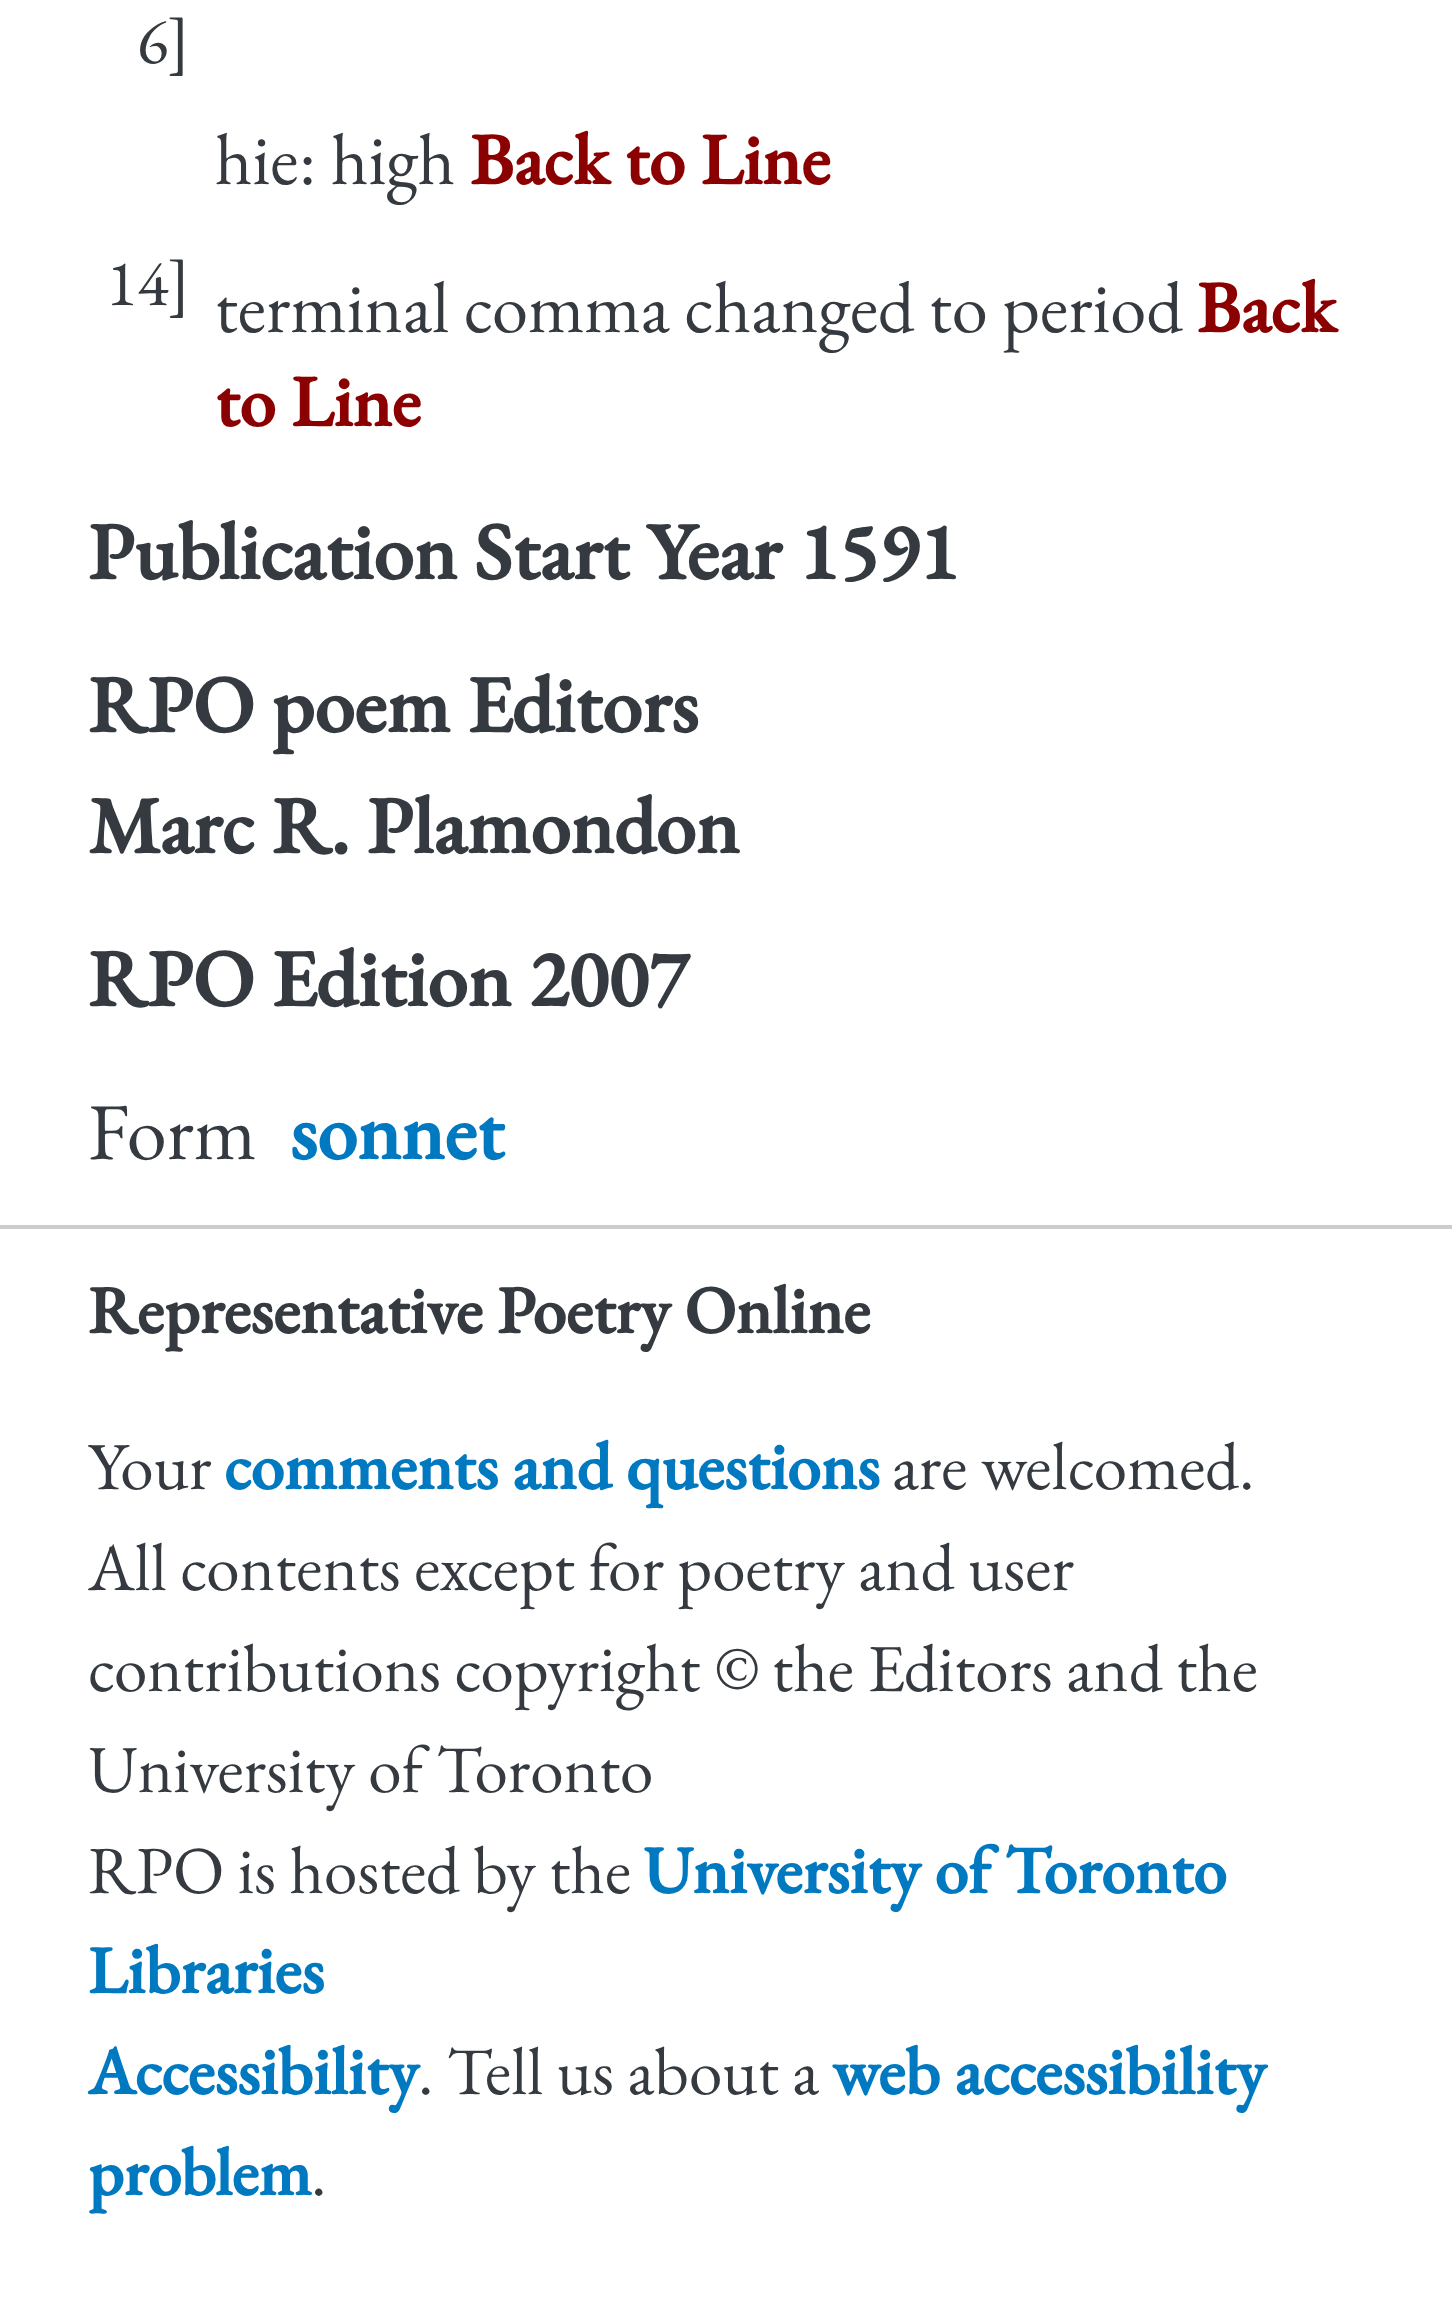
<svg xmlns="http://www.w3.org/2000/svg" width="1452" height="2316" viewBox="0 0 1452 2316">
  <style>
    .t1 { font: 65px EB Garamond; fill: #343a40; }
    .t2 { font: 72.6px EB Garamond; fill: #343a40; }
    .t3 { font: bold 72.6px EB Garamond; fill: #8b0000; }
    .t4 { font: bold 80.6px EB Garamond; fill: #343a40; }
    .t5 { font: 80.6px EB Garamond; fill: #343a40; }
    .t6 { font: bold 80.6px EB Garamond; fill: #0079c0; }
    .t7 { font: bold 67.25px EB Garamond; fill: #343a40; }
    .t8 { font: 67.25px EB Garamond; fill: #343a40; }
    .t9 { font: bold 67.25px EB Garamond; fill: #0079c0; }
  </style>
  <rect width="100%" height="100%" fill="#fff"/>
  <text x="137" y="63" class="t1">6]</text>
  <text x="215" y="184" class="t2">hie: high</text>
  <text x="470" y="184" class="t3">Back to Line</text>
  <text x="106" y="305" class="t1">14]</text>
  <text x="215" y="332" class="t2">terminal comma changed to period</text>
  <text x="1197" y="332" class="t3">Back</text>
  <text x="215" y="426" class="t3">to Line</text>
  <text x="88" y="579" class="t4">Publication Start Year 1591</text>
  <text x="88" y="732" class="t4">RPO poem Editors</text>
  <text x="88" y="853" class="t4">Marc R. Plamondon</text>
  <text x="88" y="1006" class="t4">RPO Edition 2007</text>
  <text x="88" y="1159" class="t5">Form</text>
  <text x="290" y="1159" class="t6">sonnet</text>
  <rect x="0" y="1225" width="1452" height="4" fill="#ccc"/>
  <text x="88" y="1333" class="t7">Representative Poetry Online</text>
  <text x="88" y="1489" class="t8">Your</text>
  <text x="224" y="1489" class="t9">comments and questions</text>
  <text x="892" y="1489" class="t8">are welcomed.</text>
  <text x="88" y="1590" class="t8">All contents except for poetry and user</text>
  <text x="88" y="1691" class="t8">contributions copyright © the Editors and the</text>
  <text x="88" y="1792" class="t8">University of Toronto</text>
  <text x="88" y="1893" class="t8">RPO is hosted by the</text>
  <text x="643" y="1893" class="t9">University of Toronto</text>
  <text x="88" y="1993" class="t9">Libraries</text>
  <text x="88" y="2094" class="t9">Accessibility</text>
  <text x="418" y="2094" class="t8">. Tell us about a</text>
  <text x="832" y="2094" class="t9">web accessibility</text>
  <text x="88" y="2195" class="t9">problem</text>
  <text x="311" y="2195" class="t8">.</text>
</svg>
